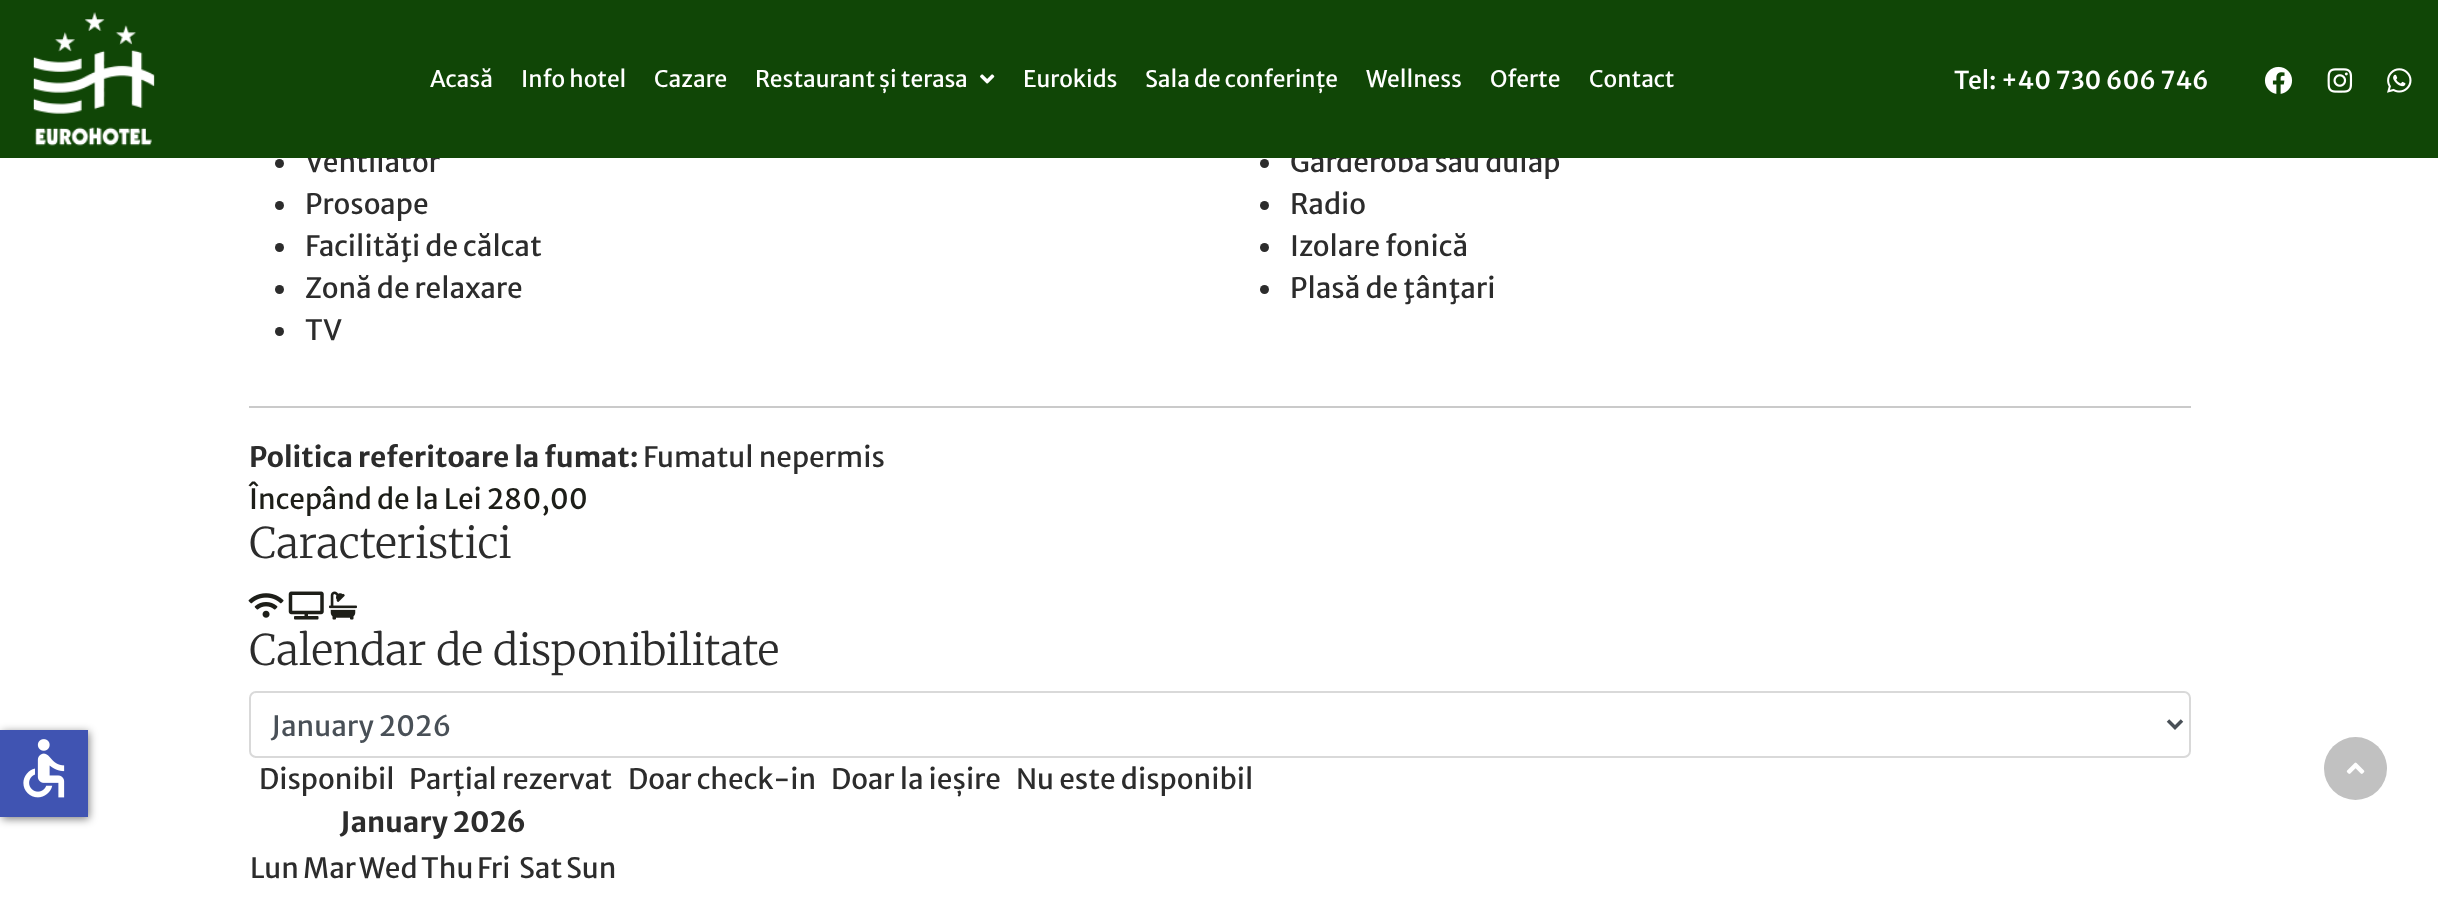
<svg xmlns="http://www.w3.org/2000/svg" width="2438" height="904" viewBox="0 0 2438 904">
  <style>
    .t1 { font: 28px Merriweather Sans; fill: #2c2c2c; }
    .t2 { font: 22.75px Merriweather Sans; fill: #fff; }
    .t3 { font: 500 24.5px Merriweather Sans; fill: #fff; }
    .t4 { font: bold 28px Merriweather Sans; fill: #2c2c2c; }
    .t5 { font: 28px Merriweather Sans; fill: #1d1e18; }
    .t6 { font: 300 42px Merriweather; fill: #2c2c2c; }
    .t7 { font: 28px Merriweather Sans; fill: #495057; }
  </style>
  <rect width="100%" height="100%" fill="#fff"/>
  <rect x="2" y="732" width="87" height="87" fill="#00000080" filter="blur(4.5px)"/>
  <rect x="0" y="730" width="88" height="87" fill="#4054b2"/>
  <image x="23" y="739" width="42" height="59" href="images/1.png"/>
  <text x="305" y="172" class="t1">Ventilator</text>
  <text x="1290" y="172" class="t1">Garderobă sau dulap</text>
  <rect x="0" y="0" width="2438" height="158" fill="#104606"/>
  <image x="33" y="12" width="122" height="134" href="images/2.png"/>
  <text x="430" y="87" class="t2">Acasă</text>
  <text x="521" y="87" class="t2">Info hotel</text>
  <text x="654" y="87" class="t2">Cazare</text>
  <text x="755" y="87" class="t2">Restaurant și terasa</text>
  <image x="980" y="74" width="15" height="10" href="images/3.png"/>
  <text x="1023" y="87" class="t2">Eurokids</text>
  <text x="1145" y="87" class="t2">Sala de conferințe</text>
  <text x="1366" y="87" class="t2">Wellness</text>
  <text x="1490" y="87" class="t2">Oferte</text>
  <text x="1589" y="87" class="t2">Contact</text>
  <text x="1954" y="89" class="t3">Tel: +40 730 606 746</text>
  <image x="2264" y="66" width="29" height="28" href="images/4.png"/>
  <image x="2327" y="68" width="26" height="25" href="images/5.png"/>
  <image x="2387" y="68" width="25" height="25" href="images/6.png"/>
  <circle cx="279.5" cy="163.5" r="4.5" fill="#2c2c2c"/>
  <circle cx="279.5" cy="205.5" r="4.5" fill="#2c2c2c"/>
  <text x="305" y="214" class="t1">Prosoape</text>
  <circle cx="279.5" cy="247.5" r="4.5" fill="#2c2c2c"/>
  <text x="305" y="256" class="t1">Facilităţi de călcat</text>
  <circle cx="279.5" cy="289.5" r="4.5" fill="#2c2c2c"/>
  <text x="305" y="298" class="t1">Zonă de relaxare</text>
  <circle cx="279.5" cy="331.5" r="4.5" fill="#2c2c2c"/>
  <text x="305" y="340" class="t1">TV</text>
  <circle cx="1264.5" cy="163.5" r="4.5" fill="#2c2c2c"/>
  <circle cx="1264.5" cy="205.5" r="4.5" fill="#2c2c2c"/>
  <text x="1290" y="214" class="t1">Radio</text>
  <circle cx="1264.5" cy="247.5" r="4.5" fill="#2c2c2c"/>
  <text x="1290" y="256" class="t1">Izolare fonică</text>
  <circle cx="1264.5" cy="289.5" r="4.5" fill="#2c2c2c"/>
  <text x="1290" y="298" class="t1">Plasă de ţânţari</text>
  <rect x="249" y="406" width="1942" height="2" fill="#cacaca"/>
  <text x="249" y="467" class="t4">Politica referitoare la fumat:</text>
  <text x="643" y="467" class="t1">Fumatul nepermis</text>
  <text x="249" y="509" class="t5">Începând de la Lei 280,00</text>
  <text x="249" y="558" class="t6">Caracteristici</text>
  <image x="248" y="593" width="36" height="25" href="images/7.png"/>
  <image x="288" y="591" width="36" height="29" href="images/8.png"/>
  <image x="329" y="591" width="28" height="29" href="images/9.png"/>
  <text x="249" y="665" class="t6">Calendar de disponibilitate</text>
  <rect x="250" y="692" width="1940" height="65" rx="6" fill="none" stroke="#d9d9d9" stroke-width="2"/>
  <path d="M2168 720.5L2175 727.5L2182 720.5" fill="none" stroke="#495057" stroke-width="3.5"/>
  <text x="271" y="736" class="t7">January 2026</text>
  <text x="259" y="789" class="t1">Disponibil</text>
  <text x="409" y="789" class="t1">Parțial rezervat</text>
  <text x="628" y="789" class="t1">Doar check-in</text>
  <text x="831" y="789" class="t1">Doar la ieșire</text>
  <text x="1016" y="789" class="t1">Nu este disponibil</text>
  <text x="340" y="832" class="t4">January 2026</text>
  <text x="250" y="878" class="t1">Lun</text>
  <text x="303" y="878" class="t1">Mar</text>
  <text x="359" y="878" class="t1">Wed</text>
  <text x="421" y="878" class="t1">Thu</text>
  <text x="477" y="878" class="t1">Fri</text>
  <text x="519" y="878" class="t1">Sat</text>
  <text x="566" y="878" class="t1">Sun</text>
  <circle cx="2355.5" cy="768.5" r="31.5" fill="#c1c1c1"/>
  <image x="2346" y="762" width="19" height="12" href="images/10.png"/>
</svg>
